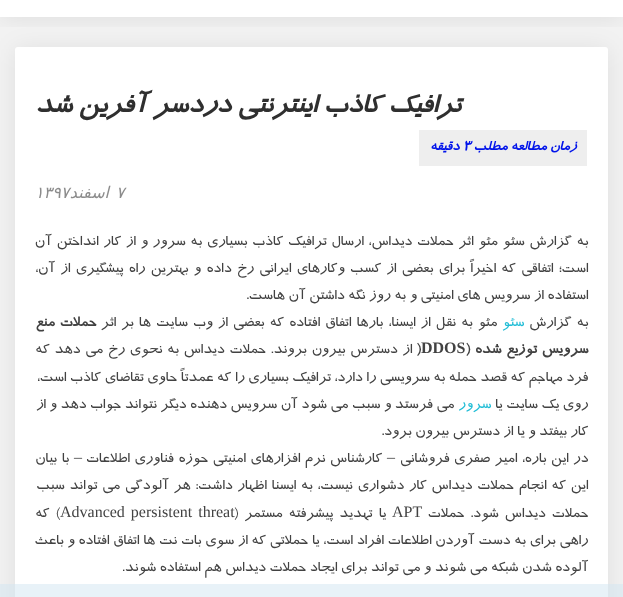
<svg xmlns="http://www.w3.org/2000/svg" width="623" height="597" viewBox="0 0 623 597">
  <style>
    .t1 { font: italic bold 30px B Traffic; direction: rtl; fill: #2f2f2f; }
    .t2 { font: italic bold 15px B Traffic; direction: rtl; fill: #0013ea; }
    .t3 { font: italic bold 15px B Traffic; fill: #0013ea; }
    .t4 { font: italic 16px DejaVu Sans; fill: #8c8c8c; }
    .t5 { font: italic 16px DejaVu Sans; direction: rtl; fill: #8c8c8c; }
    .t6 { font: 16px B Traffic; direction: rtl; fill: #424242; }
    .t7 { font: 16px B Traffic; direction: rtl; fill: #20bdd6; }
    .t8 { font: bold 16px B Traffic; direction: rtl; fill: #424242; }
    .t9 { font: bold 16px Liberation Serif; fill: #424242; }
    .t10 { font: bold 16px B Traffic; fill: #424242; }
    .t11 { font: 16px Liberation Serif; direction: rtl; fill: #424242; }
    .t12 { font: 16px Liberation Serif; fill: #424242; }
  </style>
  <defs>
    <clipPath id="clip1"><rect x="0" y="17" width="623" height="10"/></clipPath>
  </defs>
  <rect width="100%" height="100%" fill="#f2f2f2"/>
  <rect x="15" y="49" width="593" height="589" rx="3" fill="#00000014" filter="blur(12.5px)"/>
  <rect x="0" y="0" width="623" height="17" fill="#fff"/>
  <rect x="15" y="47" width="593" height="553" rx="3" fill="#fff"/>
  <g clip-path="url(#clip1)">
    <rect x="0" y="-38" width="623" height="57" fill="#00000014" filter="blur(12.5px)"/>
  </g>
  <text x="460" y="112" class="t1">ترافیك كاذب اینترنتی دردسر آفرین شد</text>
  <rect x="419" y="130" width="168" height="36" fill="#eee"/>
  <text x="576" y="150" class="t2">زمان مطالعه مطلب</text>
  <text x="463" y="150" class="t3">3</text>
  <text x="459" y="150" class="t2">دقیقه</text>
  <text x="116" y="198" class="t4">۷</text>
  <text x="35" y="198" class="t4">۱۳۹۷</text>
  <text x="109" y="198" class="t5">اسفند</text>
  <text x="588" y="245" word-spacing="1.25" class="t6">به گزارش سئو مئو اثر حملات دیداس، ارسال ترافیك كاذب بسیاری به سرور و از كار انداختن آن</text>
  <text x="588" y="272" word-spacing="1.75" class="t6">است؛ اتفاقی كه اخیراً برای بعضی از كسب وكارهای ایرانی رخ داده و بهترین راه پیشگیری از آن،</text>
  <text x="588" y="299" class="t6">استفاده از سرویس های امنیتی و به روز نگه داشتن آن هاست.</text>
  <text x="588" y="326" word-spacing="1.5" class="t6">به گزارش</text>
  <text x="524" y="326" class="t7">سئو</text>
  <text x="497" y="326" word-spacing="1.5" class="t6">مئو به نقل از ایسنا، بارها اتفاق افتاده كه بعضی از وب سایت ها بر اثر</text>
  <text x="96" y="326" word-spacing="1.5" class="t8">حملات منع</text>
  <text x="588" y="353" word-spacing="1.25" class="t8">سرویس توزیع شده (</text>
  <text x="421" y="353" class="t9">DDOS</text>
  <text x="416" y="353" class="t10">)</text>
  <text x="412" y="353" word-spacing="1.25" class="t6">از دسترس بیرون بروند. حملات دیداس به نحوی رخ می دهد كه</text>
  <text x="588" y="381" class="t6">فرد مهاجم كه قصد حمله به سرویسی را دارد، ترافیك بسیاری را كه عمدتاً حاوی تقاضای كاذب است،</text>
  <text x="588" y="408" class="t6">روی یك سایت یا</text>
  <text x="491" y="408" class="t7">سرور</text>
  <text x="454" y="408" class="t6">می فرستد و سبب می شود آن سرویس دهنده دیگر نتواند جواب دهد و از</text>
  <text x="588" y="435" class="t6">كار بیفتد و یا از دسترس بیرون برود.</text>
  <text x="588" y="462" word-spacing="1" class="t6">در این باره، امیر صفری فروشانی</text>
  <text x="395" y="462" class="t11">–</text>
  <text x="382" y="462" word-spacing="1" class="t6">كارشناس نرم افزارهای امنیتی حوزه فناوری اطلاعات</text>
  <text x="82" y="462" class="t11">–</text>
  <text x="69" y="462" word-spacing="1" class="t6">با بیان</text>
  <text x="588" y="489" word-spacing="1.25" class="t6">این كه انجام حملات دیداس كار دشواری نیست، به ایسنا اظهار داشت: هر آلودگی می تواند سبب</text>
  <text x="588" y="517" word-spacing="2.5" class="t6">حملات دیداس شود. حملات</text>
  <text x="392" y="517" class="t12">APT</text>
  <text x="386" y="517" word-spacing="2.5" class="t6">یا تهدید پیشرفته مستمر (</text>
  <text x="60" y="517" word-spacing="2" class="t12">Advanced persistent threat</text>
  <text x="60" y="517" word-spacing="2.5" class="t6">) كه</text>
  <text x="588" y="544" word-spacing="0.2" class="t6">راهی برای به دست آوردن اطلاعات افراد است، یا حملاتی كه از سوی بات نت ها اتفاق افتاده و باعث</text>
  <text x="588" y="571" class="t6">آلوده شدن شبكه می شوند و می تواند برای ایجاد حملات دیداس هم استفاده شوند.</text>
  <rect x="0" y="584" width="623" height="13" fill="#d2e5f280"/>
</svg>
